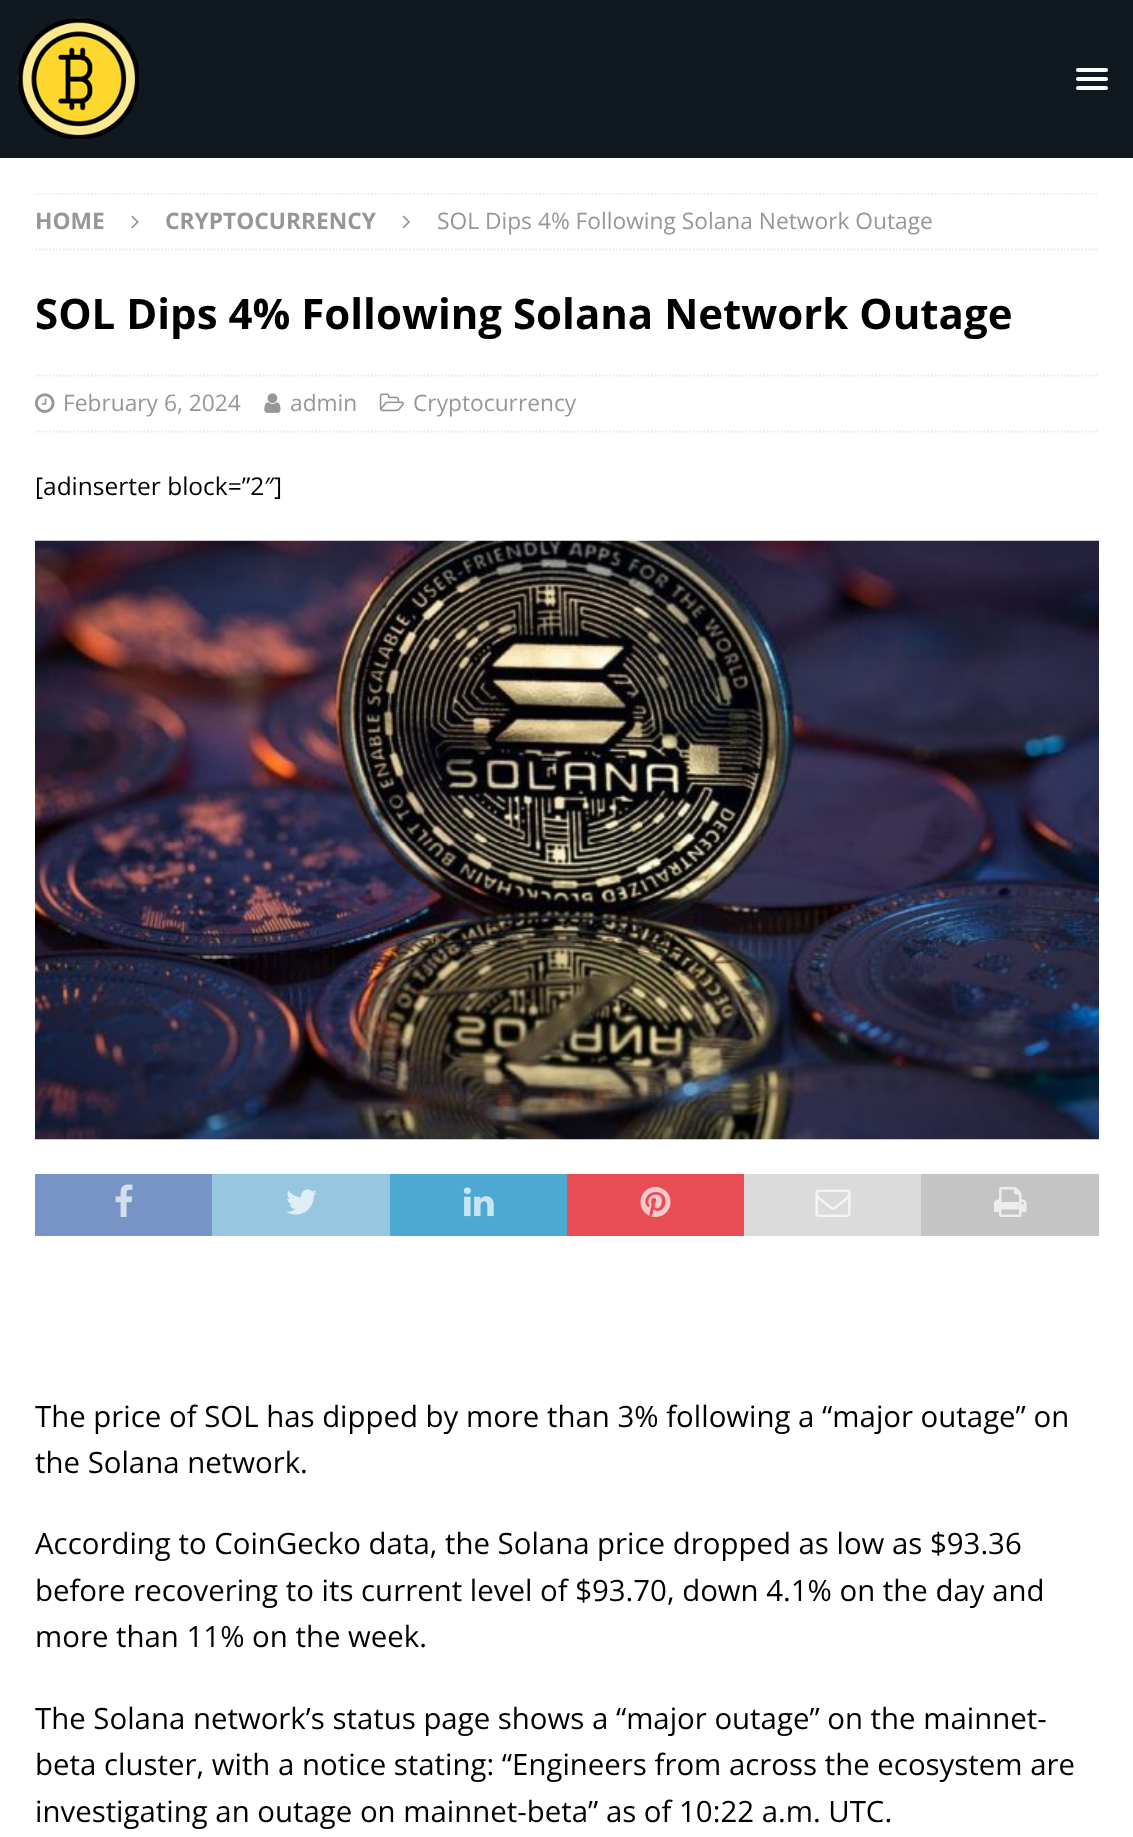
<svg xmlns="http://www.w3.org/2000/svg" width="1133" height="1837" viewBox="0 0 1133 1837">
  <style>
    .t1 { font: bold 22.75px Open Sans; fill: #979797; }
    .t2 { font: 22.75px Open Sans; fill: #979797; }
    .t3 { font: bold 42px Open Sans; fill: #000; }
    .t4 { font: 24.5px Open Sans; fill: #000; }
    .t5 { font: 29.4px Open Sans; fill: #000; }
  </style>
  <defs>
    <clipPath id="clip1"><rect x="35" y="193" width="1064" height="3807"/></clipPath>
  </defs>
  <rect width="100%" height="100%" fill="#101820"/>
  <image x="17" y="17" width="123" height="123" href="images/1.png"/>
  <rect x="1076" y="68" width="32" height="4" rx="2" fill="#fff"/>
  <rect x="1076" y="77" width="32" height="4" rx="2" fill="#fff"/>
  <rect x="1076" y="86" width="32" height="4" rx="2" fill="#fff"/>
  <rect x="0" y="158" width="1133" height="1679" fill="#fff"/>
  <g clip-path="url(#clip1)">
    <path d="M35 193.5H1099" fill="none" stroke="#ebebeb" stroke-width="1.8" stroke-dasharray="1.75 1.75"/>
  </g>
  <path d="M35 249.5H1099" fill="none" stroke="#ebebeb" stroke-width="1.8" stroke-dasharray="1.75 1.75"/>
  <text x="35" y="229" class="t1">HOME</text>
  <image x="131" y="215" width="8" height="14" href="images/2.png"/>
  <text x="165" y="229" class="t1">CRYPTOCURRENCY</text>
  <image x="402" y="215" width="8" height="14" href="images/3.png"/>
  <text x="437" y="229" class="t2">SOL Dips 4% Following Solana Network Outage</text>
  <text x="35" y="329" class="t3">SOL Dips 4% Following Solana Network Outage</text>
  <path d="M35 375.5H1099" fill="none" stroke="#ebebeb" stroke-width="1.8" stroke-dasharray="1.75 1.75"/>
  <path d="M35 431.5H1099" fill="none" stroke="#ebebeb" stroke-width="1.8" stroke-dasharray="1.75 1.75"/>
  <image x="35" y="393" width="20" height="20" href="images/4.png"/>
  <text x="63" y="411" class="t2">February 6, 2024</text>
  <image x="264" y="393" width="17" height="20" href="images/5.png"/>
  <text x="290" y="411" class="t2">admin</text>
  <image x="379" y="393" width="25" height="19" href="images/6.png"/>
  <text x="413" y="411" class="t2">Cryptocurrency</text>
  <text x="35" y="495" class="t4">[adinserter block=”2″]</text>
  <image x="35" y="540" width="1064" height="600" href="images/7.png"/>
  <rect x="35" y="1174" width="177" height="62" fill="#7893c6"/>
  <image x="115" y="1184" width="18" height="33" href="images/8.png"/>
  <rect x="212" y="1174" width="178" height="62" fill="#97c6df"/>
  <image x="286" y="1189" width="31" height="26" href="images/9.png"/>
  <rect x="390" y="1174" width="177" height="62" fill="#4da9d2"/>
  <image x="463" y="1187" width="31" height="30" href="images/10.png"/>
  <rect x="567" y="1174" width="177" height="62" fill="#e84d56"/>
  <image x="640" y="1187" width="31" height="30" href="images/11.png"/>
  <rect x="744" y="1174" width="177" height="62" fill="#dbdbdb"/>
  <image x="815" y="1189" width="36" height="28" href="images/12.png"/>
  <rect x="921" y="1174" width="178" height="62" fill="#c4c4c4"/>
  <image x="994" y="1187" width="33" height="30" href="images/13.png"/>
  <text x="35" y="1427" class="t5">The price of SOL has dipped by more than 3% following a “major outage” on</text>
  <text x="35" y="1473" class="t5">the Solana network.</text>
  <text x="35" y="1554" class="t5">According to CoinGecko data, the Solana price dropped as low as $93.36</text>
  <text x="35" y="1601" class="t5">before recovering to its current level of $93.70, down 4.1% on the day and</text>
  <text x="35" y="1647" class="t5">more than 11% on the week.</text>
  <text x="35" y="1729" class="t5">The Solana network’s status page shows a “major outage” on the mainnet-</text>
  <text x="35" y="1775" class="t5">beta cluster, with a notice stating: “Engineers from across the ecosystem are</text>
  <text x="35" y="1822" class="t5">investigating an outage on mainnet-beta” as of 10:22 a.m. UTC.</text>
</svg>
